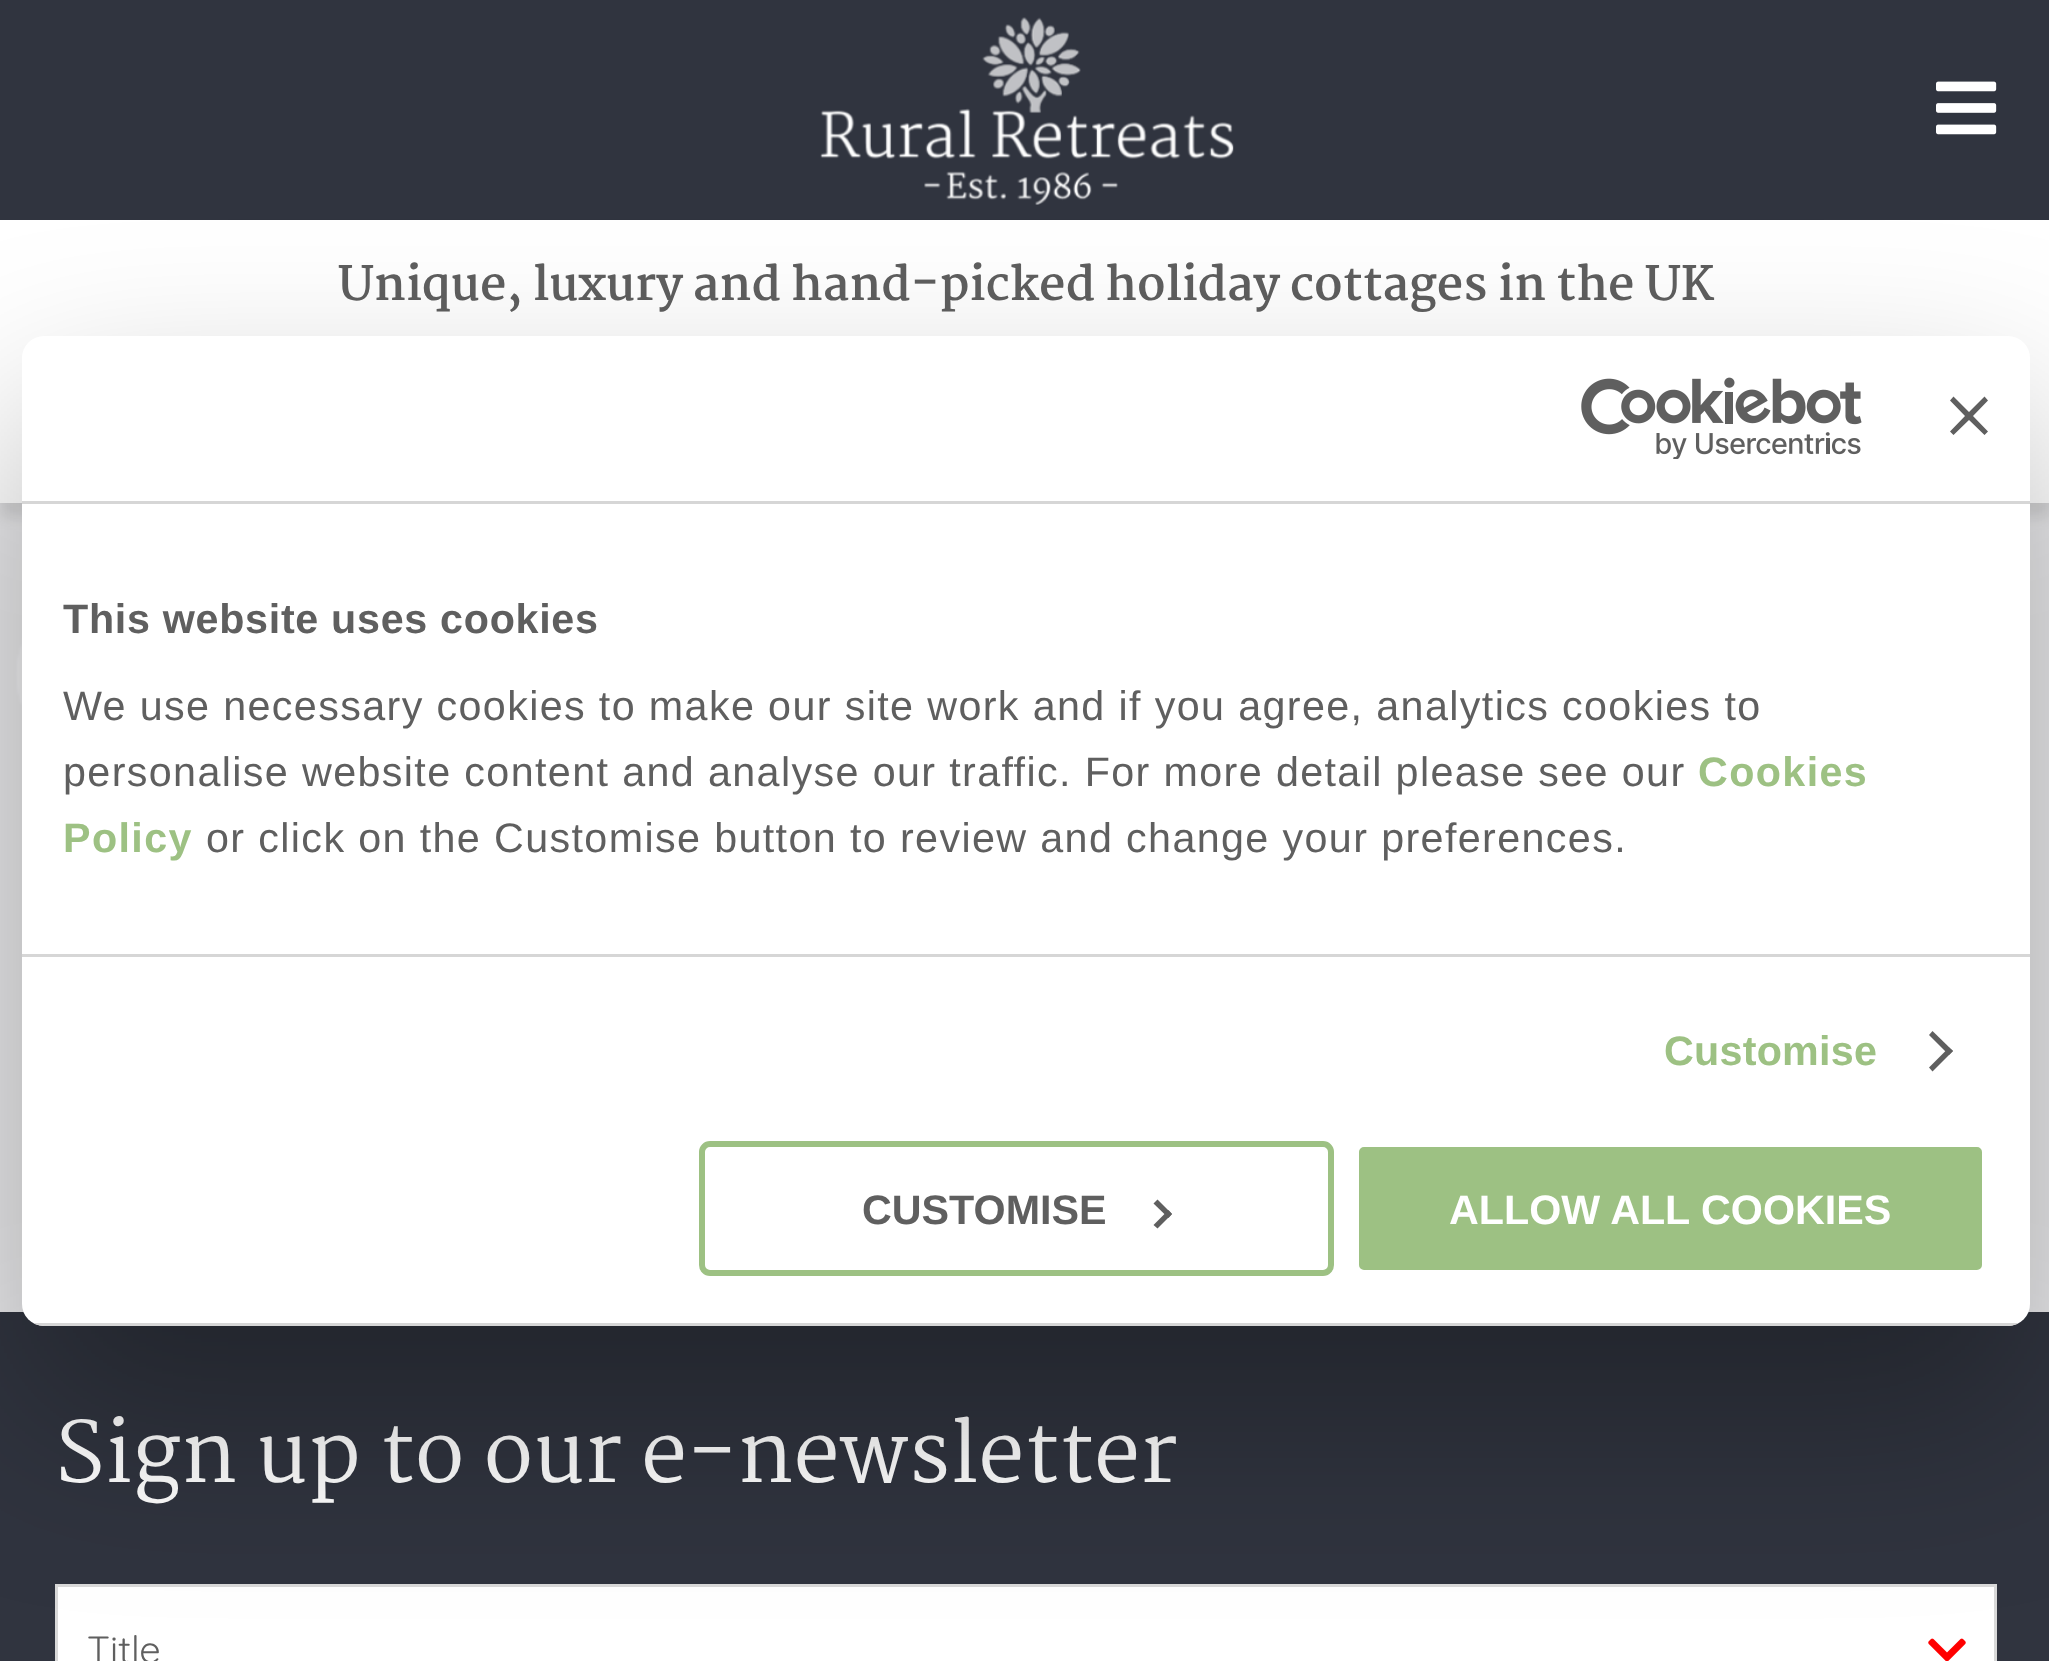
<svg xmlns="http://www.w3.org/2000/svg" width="2049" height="1661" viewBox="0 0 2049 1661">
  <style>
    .t1 { font: bold 46.2px Martel; fill: #5f5f5f; }
    .t2 { font: 82.5px Martel; fill: #fff; }
    .t3 { font: 38px Quicksand; fill: #5f5f5f; }
    .t4 { font: bold 41.25px Liberation Sans; letter-spacing: 0.7px; fill: #5f5f5f; }
    .t5 { font: 41.25px Liberation Sans; letter-spacing: 1.38px; fill: #5f5f5f; }
    .t6 { font: bold 41.25px Liberation Sans; letter-spacing: 1.38px; fill: #9dc183; }
    .t7 { font: bold 41.25px Liberation Sans; letter-spacing: 0.25px; fill: #9dc183; }
    .t8 { font: bold 41.25px Liberation Sans; fill: #5f5f5f; }
    .t9 { font: bold 41.25px Liberation Sans; fill: #fff; }
  </style>
  <defs>
    <clipPath id="clip1"><rect x="22" y="336" width="2008" height="990" rx="22"/></clipPath>
  </defs>
  <rect width="100%" height="100%" fill="#30343f"/>
  <image x="820" y="17" width="414" height="188" href="images/1.png"/>
  <image x="1936" y="81" width="61" height="54" href="images/2.png"/>
  <rect x="0" y="503" width="2049" height="809" fill="#eaeaec"/>
  <rect x="0" y="234" width="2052" height="283" fill="#0000001a" filter="blur(7px)"/>
  <rect x="0" y="220" width="2049" height="283" fill="#fff"/>
  <text x="338" y="300" word-spacing="-0.25" class="t1">Unique, luxury and hand-picked holiday cottages</text>
  <text x="1498" y="300" class="t1">in the UK</text>
  <image x="14" y="637" width="8" height="74" href="images/3.png"/>
  <text x="55" y="1482" class="t2">Sign up to our e-newsletter</text>
  <rect x="58" y="1587" width="1936" height="74" fill="#fff"/>
  <image x="1928" y="1638" width="38" height="23" href="images/4.png"/>
  <rect x="56.5" y="1585.5" width="1939" height="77" fill="none" stroke="#d9d9d9" stroke-width="3"/>
  <text x="87" y="1663" class="t3">Title</text>
  <rect x="22" y="424" width="2008" height="990" rx="22" fill="#0000004d" filter="blur(93.5px)"/>
  <rect x="22" y="336" width="2008" height="990" rx="22" fill="#fff"/>
  <rect x="22" y="501" width="2008" height="3" fill="#d6d6d6"/>
  <image x="1581" y="377" width="281" height="82" href="images/5.png"/>
  <path d="M1988 400.5L1984.5 396.5L1969 412L1953.5 396.5L1950 400.5L1965 416L1950 431.5L1953.5 435L1969 420L1984.5 435L1988 431.5L1973 416Z" fill="#5f5f5f"/>
  <rect x="22" y="954" width="2008" height="3" fill="#d6d6d6"/>
  <text x="63" y="633" class="t4">This website uses cookies</text>
  <text x="63" y="720" class="t5">We use necessary cookies to make our site work and if you agree, analytics cookies to</text>
  <text x="63" y="786" class="t5">personalise website content and analyse our traffic. For more detail please see our</text>
  <text x="1698" y="786" class="t6">Cookies</text>
  <text x="63" y="852" class="t6">Policy</text>
  <text x="206" y="852" class="t5">or click on the Customise button to review and change your preferences.</text>
  <text x="1664" y="1065" class="t7">Customise</text>
  <path d="M1932.5 1031L1953 1051L1949 1055L1929 1035Z" fill="#5f5f5f"/>
  <path d="M1949 1047.5L1953 1051L1932.5 1071.5L1929 1067.5Z" fill="#5f5f5f"/>
  <g clip-path="url(#clip1)">
    <rect x="33" y="1323" width="1986" height="3" fill="#d6d6d6"/>
  </g>
  <rect x="702" y="1144" width="629" height="129" rx="8" fill="none" stroke="#9dc183" stroke-width="6"/>
  <text x="862" y="1224" class="t8">CUSTOMISE</text>
  <path d="M1157.5 1199.5L1172 1214L1168.5 1218L1153.5 1203.5Z" fill="#5f5f5f"/>
  <path d="M1168.5 1210L1172 1214L1157.5 1228.5L1153.5 1225Z" fill="#5f5f5f"/>
  <rect x="1356" y="1144" width="629" height="129" rx="8" fill="#9dc183" stroke="#fff" stroke-width="6"/>
  <text x="1449" y="1224" class="t9">ALLOW ALL COOKIES</text>
</svg>
